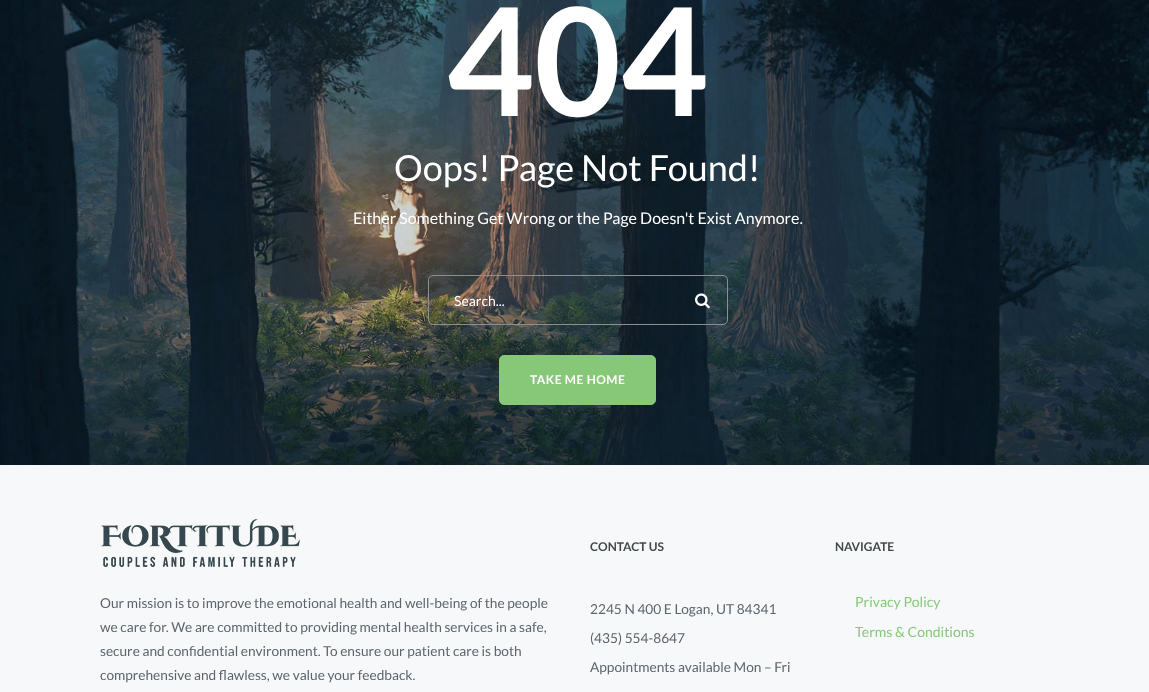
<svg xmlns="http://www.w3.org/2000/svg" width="1149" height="692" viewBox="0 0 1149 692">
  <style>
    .t1 { font: bold 150px Lato; fill: #fff; }
    .t2 { font: 36px Lato; fill: #fff; }
    .t3 { font: 16px Lato; fill: #fff; }
    .t4 { font: 14px Lato; fill: #fff; }
    .t5 { font: bold 12px Lato; letter-spacing: 0.5px; fill: #fff; }
    .t6 { font: 13.7px Lato; fill: #5c656d; }
    .t7 { font: bold 12px Lato; fill: #42474c; }
    .t8 { font: 14px Lato; fill: #86c878; }
  </style>
  <rect width="100%" height="100%" fill="#f6f8f9"/>
  <image x="0" y="0" width="1149" height="465" href="images/1.png"/>
  <text x="447" y="116" class="t1">404</text>
  <text x="394" y="181" class="t2">Oops! Page Not Found!</text>
  <text x="353" y="224" class="t3">Either Something Get Wrong or the Page Doesn't Exist Anymore.</text>
  <rect x="428.5" y="275.5" width="299" height="49" rx="4.5" fill="none" stroke="#8c8f8e"/>
  <text x="454" y="306" class="t4">Search...</text>
  <image x="695" y="293" width="15" height="16" href="images/2.png"/>
  <rect x="499.5" y="355.5" width="156" height="49" rx="4.5" fill="#86c878" stroke="#86c878"/>
  <text x="530" y="384" class="t5">TAKE ME HOME</text>
  <image x="101" y="519" width="199" height="48" href="images/3.png"/>
  <text x="100" y="608" class="t6">Our mission is to improve the emotional health and well-being of the people</text>
  <text x="100" y="632" class="t6">we care for. We are committed to providing mental health services in a safe,</text>
  <text x="100" y="656" class="t6">secure and confidential environment. To ensure our patient care is both</text>
  <text x="100" y="680" class="t6">comprehensive and flawless, we value your feedback.</text>
  <text x="590" y="551" class="t7">CONTACT US</text>
  <text x="590" y="614" class="t6">2245 N 400 E Logan, UT 84341</text>
  <text x="590" y="643" class="t6">(435) 554-8647</text>
  <text x="590" y="672" class="t6">Appointments available Mon – Fri</text>
  <text x="835" y="551" class="t7">NAVIGATE</text>
  <text x="855" y="607" class="t8">Privacy Policy</text>
  <text x="855" y="637" class="t8">Terms &amp; Conditions</text>
</svg>
